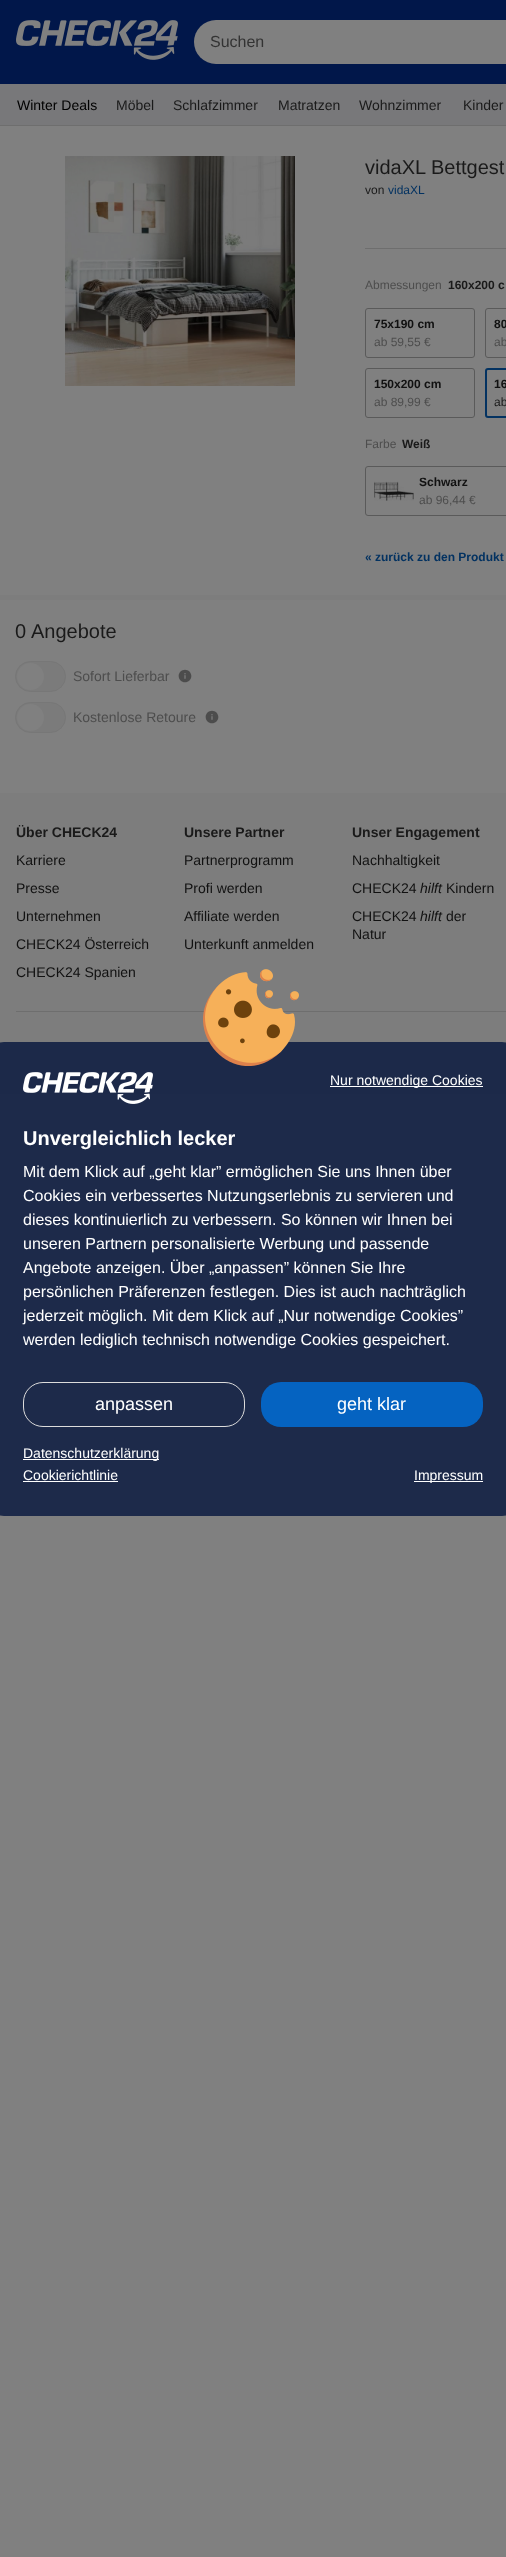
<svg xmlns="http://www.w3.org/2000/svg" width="506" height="2557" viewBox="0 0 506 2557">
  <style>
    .t1 { font: 16px Liberation Sans; fill: #333; }
    .t2 { font: 14px Liberation Sans; fill: #fff; }
    .t3 { font: bold 20px Liberation Sans; fill: #fff; }
    .t4 { font: 16px Liberation Sans; fill: #fff; }
    .t5 { font: 18px Liberation Sans; fill: #fff; }
    .t6 { font: 14px Liberation Sans; fill: #000; }
    .t7 { font: 14px Liberation Sans; fill: #1a1a1a; }
    .t8 { font: 20px Liberation Sans; fill: #1a1a1a; }
    .t9 { font: 12px Liberation Sans; fill: #1a1a1a; }
    .t10 { font: 12px Liberation Sans; fill: #033261; }
    .t11 { font: 12px Liberation Sans; fill: #4d4d4d; }
    .t12 { font: bold 12px Liberation Sans; fill: #1a1a1a; }
    .t13 { font: bold 12px Liberation Sans; fill: #111; }
    .t14 { font: bold 12px Liberation Sans; fill: #033261; }
    .t15 { font: 14px Liberation Sans; fill: #4d4d4d; }
    .t16 { font: bold 14px Liberation Sans; fill: #1a1a1a; }
    .t17 { font: 14px Liberation Sans; fill: #111; }
    .t18 { font: italic 14px Liberation Sans; fill: #111; }
  </style>
  <rect width="100%" height="100%" fill="#808080"/>
  <rect x="0" y="0" width="506" height="84" fill="#01174a"/>
  <image x="16" y="20" width="162" height="40" href="images/1.png"/>
  <rect x="194" y="20" width="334" height="44" rx="22" fill="#808080"/>
  <text x="210" y="47" class="t1">Suchen</text>
  <rect x="0" y="793" width="506" height="301" fill="#7d7d7d"/>
  <rect x="-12" y="1042" width="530" height="474" rx="16" fill="#04143ccc"/>
  <rect x="16" y="1011" width="490" height="1" fill="#6e6e6e"/>
  <image x="203" y="969" width="96" height="97" href="images/2.png"/>
  <image x="23" y="1072" width="130" height="32" href="images/3.png"/>
  <rect x="330" y="1086" width="153" height="1" fill="#fff"/>
  <text x="330" y="1085" class="t2">Nur notwendige Cookies</text>
  <text x="23" y="1145" class="t3">Unvergleichlich lecker</text>
  <text x="23" y="1177" class="t4">Mit dem Klick auf „geht klar” ermöglichen Sie uns Ihnen über</text>
  <text x="23" y="1201" class="t4">Cookies ein verbessertes Nutzungserlebnis zu servieren und</text>
  <text x="23" y="1225" class="t4">dieses kontinuierlich zu verbessern. So können wir Ihnen bei</text>
  <text x="23" y="1249" class="t4">unseren Partnern personalisierte Werbung und passende</text>
  <text x="23" y="1273" class="t4">Angebote anzeigen. Über „anpassen” können Sie Ihre</text>
  <text x="23" y="1297" class="t4">persönlichen Präferenzen festlegen. Dies ist auch nachträglich</text>
  <text x="23" y="1321" class="t4">jederzeit möglich. Mit dem Klick auf „Nur notwendige Cookies”</text>
  <text x="23" y="1345" class="t4">werden lediglich technisch notwendige Cookies gespeichert.</text>
  <rect x="23.5" y="1382.5" width="221" height="44" rx="19.5" fill="none" stroke="#dcdcdc"/>
  <text x="95" y="1410" class="t5">anpassen</text>
  <rect x="261" y="1382" width="222" height="45" rx="20" fill="#0563c1"/>
  <text x="337" y="1410" class="t5">geht klar</text>
  <rect x="23" y="1459" width="136" height="1" fill="#fff"/>
  <text x="23" y="1458" class="t2">Datenschutzerklärung</text>
  <text x="23" y="1480" class="t2">Cookierichtlinie</text>
  <rect x="23" y="1481" width="95" height="1" fill="#fff"/>
  <rect x="414" y="1481" width="69" height="1" fill="#fff"/>
  <text x="414" y="1480" class="t2">Impressum</text>
  <rect x="0" y="84" width="506" height="41" fill="#78787a"/>
  <rect x="0" y="125" width="506" height="1" fill="#6e6e6e"/>
  <text x="17" y="110" class="t6">Winter Deals</text>
  <text x="116" y="110" class="t7">Möbel</text>
  <text x="173" y="110" class="t7">Schlafzimmer</text>
  <text x="278" y="110" class="t7">Matratzen</text>
  <text x="359" y="110" class="t7">Wohnzimmer</text>
  <text x="463" y="110" class="t7">Kinder</text>
  <rect x="0" y="595" width="506" height="5" fill="#7d7d7d"/>
  <image x="65" y="156" width="230" height="230" href="images/4.png"/>
  <text x="365" y="174" class="t8">vidaXL Bettgest</text>
  <text x="365" y="194" class="t9">von</text>
  <text x="388" y="194" class="t10">vidaXL</text>
  <rect x="365" y="248" width="141" height="1" fill="#6e6e6e"/>
  <text x="365" y="289" class="t11">Abmessungen</text>
  <text x="448" y="289" class="t12">160x200 c</text>
  <rect x="365.5" y="308.5" width="109" height="49" rx="2.5" fill="none" stroke="#5a5a5a"/>
  <text x="374" y="328" class="t13">75x190 cm</text>
  <text x="374" y="346" class="t11">ab 59,55 €</text>
  <rect x="485.5" y="308.5" width="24" height="49" rx="2.5" fill="none" stroke="#5a5a5a"/>
  <text x="494" y="328" class="t13">80</text>
  <text x="494" y="346" class="t11">ab</text>
  <rect x="365.5" y="368.5" width="109" height="49" rx="2.5" fill="none" stroke="#5a5a5a"/>
  <text x="374" y="388" class="t13">150x200 cm</text>
  <text x="374" y="406" class="t11">ab 89,99 €</text>
  <rect x="486" y="369" width="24" height="48" rx="2" fill="none" stroke="#033261" stroke-width="2"/>
  <text x="494" y="388" class="t13">16</text>
  <text x="494" y="406" class="t9">ab</text>
  <text x="365" y="448" class="t11">Farbe</text>
  <text x="402" y="448" class="t12">Weiß</text>
  <rect x="365.5" y="466.5" width="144" height="49" rx="2.5" fill="none" stroke="#5a5a5a"/>
  <image x="374" y="481" width="40" height="20" href="images/5.png"/>
  <text x="419" y="486" class="t13">Schwarz</text>
  <text x="419" y="504" class="t11">ab 96,44 €</text>
  <text x="365" y="561" class="t14">« zurück zu den Produkt</text>
  <text x="15" y="638" class="t8">0</text>
  <text x="31" y="638" class="t8">Angebote</text>
  <rect x="15.5" y="661.5" width="50" height="30" rx="15" fill="#7b7b7b" stroke="#777"/>
  <circle cx="30.5" cy="676.5" r="13.5" fill="#808080"/>
  <text x="73" y="681" class="t15">Sofort Lieferbar</text>
  <image x="178" y="669" width="14" height="14" href="images/6.png"/>
  <rect x="15.5" y="702.5" width="50" height="30" rx="15" fill="#7b7b7b" stroke="#777"/>
  <circle cx="30.5" cy="717.5" r="13.5" fill="#808080"/>
  <text x="73" y="722" class="t15">Kostenlose Retoure</text>
  <image x="205" y="710" width="14" height="14" href="images/6.png"/>
  <text x="16" y="837" class="t16">Über CHECK24</text>
  <text x="16" y="865" class="t17">Karriere</text>
  <text x="16" y="893" class="t17">Presse</text>
  <text x="16" y="921" class="t17">Unternehmen</text>
  <text x="16" y="949" class="t17">CHECK24 Österreich</text>
  <text x="16" y="977" class="t17">CHECK24 Spanien</text>
  <text x="184" y="837" class="t16">Unsere Partner</text>
  <text x="184" y="865" class="t17">Partnerprogramm</text>
  <text x="184" y="893" class="t17">Profi werden</text>
  <text x="184" y="921" class="t17">Affiliate werden</text>
  <text x="184" y="949" class="t17">Unterkunft anmelden</text>
  <text x="352" y="837" class="t16">Unser Engagement</text>
  <text x="352" y="865" class="t17">Nachhaltigkeit</text>
  <text x="352" y="893" class="t17">CHECK24</text>
  <text x="420" y="893" class="t18">hilft</text>
  <text x="446" y="893" class="t17">Kindern</text>
  <text x="352" y="921" class="t17">CHECK24</text>
  <text x="420" y="921" class="t18">hilft</text>
  <text x="446" y="921" class="t17">der</text>
  <text x="352" y="939" class="t17">Natur</text>
</svg>
